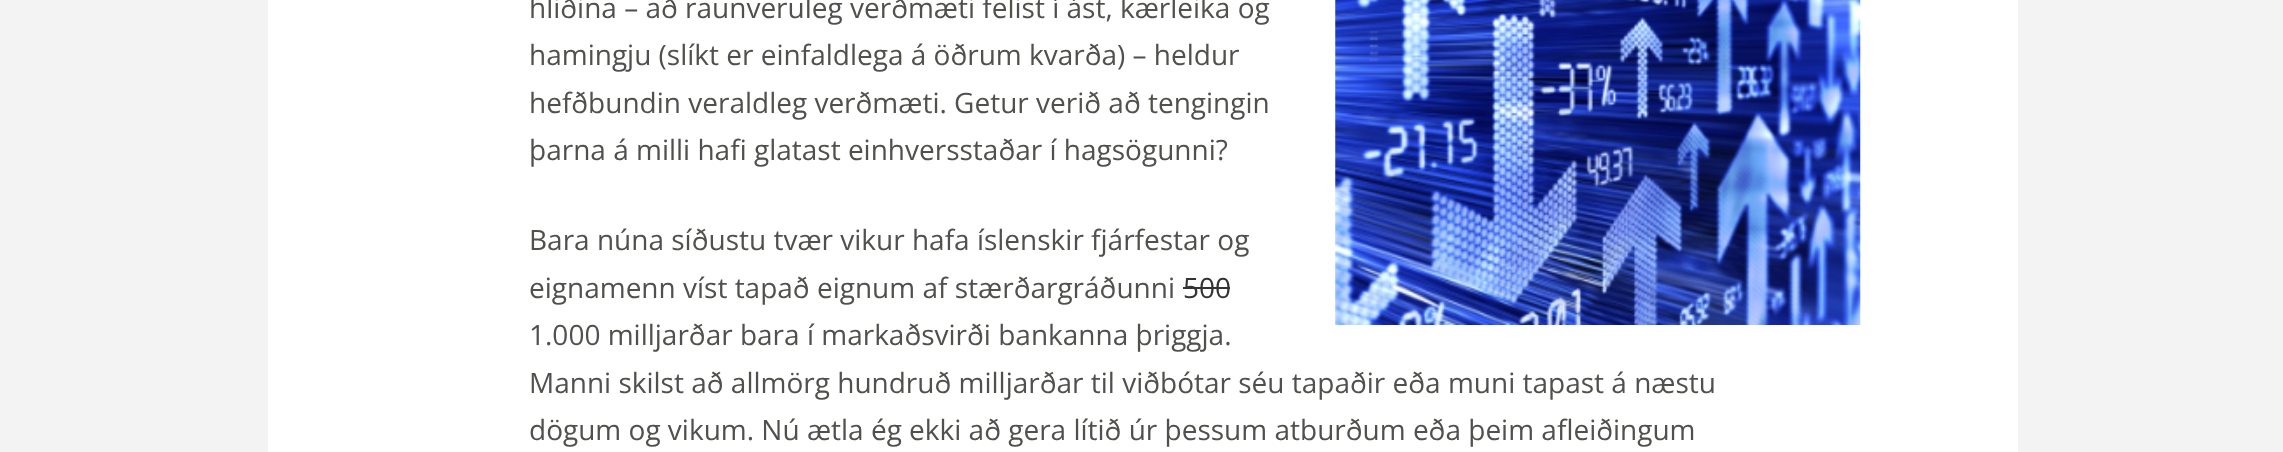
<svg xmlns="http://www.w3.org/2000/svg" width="2283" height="452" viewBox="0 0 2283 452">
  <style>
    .t1 { font: 28px Open Sans; fill: #50504d; }
    .t2 { font: 28px Open Sans; fill: #333; }
  </style>
  <rect width="100%" height="100%" fill="#f3f3f3"/>
  <rect x="268" y="0" width="1750" height="452" fill="#fff"/>
  <text x="529" y="18" class="t1">hliðina – að raunveruleg verðmæti felist í ást, kærleika og</text>
  <image x="1335" y="0" width="526" height="325" href="images/1.png"/>
  <text x="529" y="65" class="t1">hamingju (slíkt er einfaldlega á öðrum kvarða) – heldur</text>
  <text x="529" y="113" class="t1">hefðbundin veraldleg verðmæti. Getur verið að tengingin</text>
  <text x="529" y="160" class="t1">þarna á milli hafi glatast einhversstaðar í hagsögunni?</text>
  <text x="529" y="250" class="t1">Bara núna síðustu tvær vikur hafa íslenskir fjárfestar og</text>
  <text x="529" y="298" class="t1">eignamenn víst tapað eignum af stærðargráðunni</text>
  <text x="1183" y="298" class="t2">500</text>
  <rect x="1183" y="287" width="47" height="2" fill="#333"/>
  <text x="529" y="345" class="t1">1.000 milljarðar bara í markaðsvirði bankanna þriggja.</text>
  <text x="529" y="393" class="t1">Manni skilst að allmörg hundruð milljarðar til viðbótar séu tapaðir eða muni tapast á næstu</text>
  <text x="529" y="440" class="t1">dögum og vikum. Nú ætla ég ekki að gera lítið úr þessum atburðum eða þeim afleiðingum</text>
</svg>
